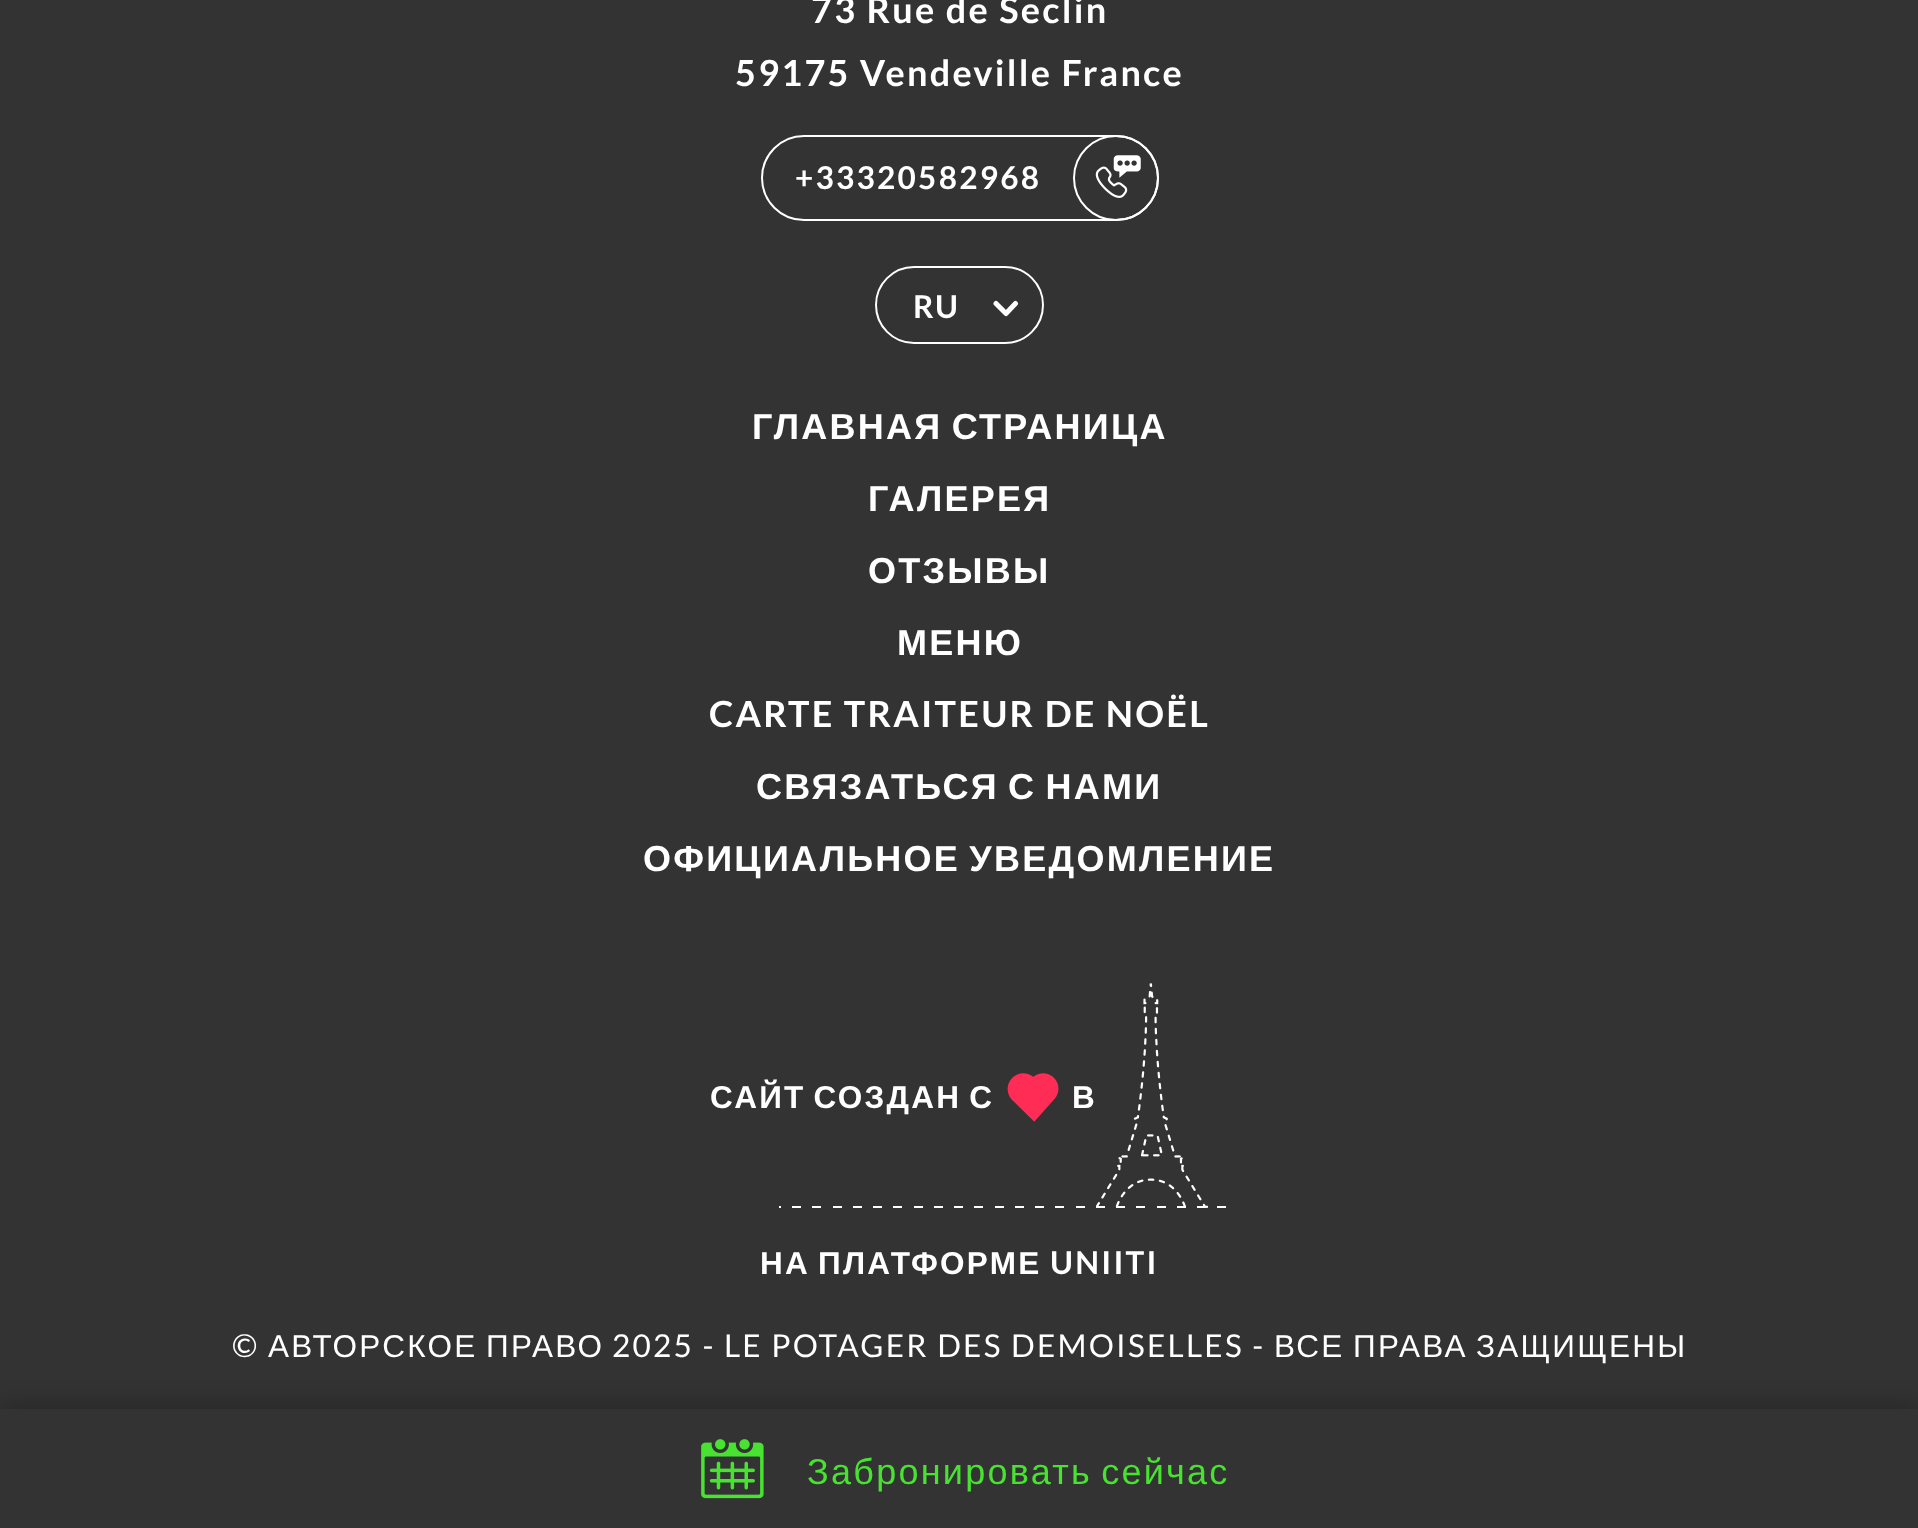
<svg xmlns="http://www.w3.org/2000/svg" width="1918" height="1528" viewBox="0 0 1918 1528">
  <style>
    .t1 { font: bold 36px Lato; letter-spacing: 2.25px; fill: #fff; }
    .t2 { font: bold 31.5px Lato; letter-spacing: 2.25px; fill: #fff; }
    .t3 { font: bold 36px Liberation Sans; letter-spacing: 2.25px; fill: #fff; }
    .t4 { font: bold 31.5px Liberation Sans; letter-spacing: 2.25px; fill: #fff; }
    .t5 { font: 31.5px Lato; letter-spacing: 2.25px; fill: #fff; }
    .t6 { font: 31.5px Liberation Sans; letter-spacing: 2.25px; fill: #fff; }
    .t7 { font: 36px Liberation Sans; letter-spacing: 2.25px; fill: #48e331; }
  </style>
  <rect width="100%" height="100%" fill="#333"/>
  <text x="811" y="23" class="t1">73 Rue de Seclin</text>
  <text x="735" y="86" class="t1">59175 Vendeville France</text>
  <rect x="762" y="136" width="396" height="84" rx="42" fill="none" stroke="#fff" stroke-width="2"/>
  <text x="795" y="189" class="t2">+33320582968</text>
  <circle cx="1116" cy="178" r="42" fill="none" stroke="#fff" stroke-width="2"/>
  <image x="1095" y="155" width="46" height="43" href="images/1.png"/>
  <rect x="876" y="267" width="167" height="76" rx="38" fill="none" stroke="#fff" stroke-width="2"/>
  <text x="913" y="318" class="t2">RU</text>
  <path d="M996 303.5L1006 313.5L1015.5 303.5" fill="none" stroke="#fff" stroke-width="5" stroke-linecap="round" stroke-linejoin="round"/>
  <text x="752" y="439" word-spacing="-3" class="t3">ГЛАВНАЯ СТРАНИЦА</text>
  <text x="868" y="511" class="t3">ГАЛЕРЕЯ</text>
  <text x="868" y="583" class="t3">ОТЗЫВЫ</text>
  <text x="897" y="655" class="t3">МЕНЮ</text>
  <text x="709" y="727" class="t1">CARTE TRAITEUR DE NOËL</text>
  <text x="756" y="799" word-spacing="-3" class="t3">СВЯЗАТЬСЯ С НАМИ</text>
  <text x="643" y="871" word-spacing="-3" class="t3">ОФИЦИАЛЬНОЕ УВЕДОМЛЕНИЕ</text>
  <text x="710" y="1108" word-spacing="-3" class="t4">САЙТ СОЗДАН С</text>
  <image x="1007" y="1073" width="52" height="49" href="images/2.png"/>
  <text x="1072" y="1108" class="t4">В</text>
  <image x="1096" y="983" width="112" height="225" href="images/3.png"/>
  <image x="779" y="1206" width="447" height="2" href="images/4.png"/>
  <text x="760" y="1274" word-spacing="-3" class="t4">НА ПЛАТФОРМЕ</text>
  <text x="1050" y="1274" class="t2">UNIITI</text>
  <text x="232" y="1357" class="t5">©</text>
  <text x="268" y="1357" class="t6">АВТОРСКОЕ</text>
  <text x="486" y="1357" class="t6">ПРАВО</text>
  <text x="612" y="1357" class="t5">2025 - LE POTAGER DES DEMOISELLES -</text>
  <text x="1274" y="1357" class="t6">ВСЕ</text>
  <text x="1353" y="1357" class="t6">ПРАВА</text>
  <text x="1476" y="1357" class="t6">ЗАЩИЩЕНЫ</text>
  <rect x="0" y="1402" width="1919" height="121" fill="#00000033" filter="blur(11px)"/>
  <rect x="0" y="1409" width="1918" height="119" fill="#333"/>
  <image x="701" y="1439" width="63" height="60" href="images/5.png"/>
  <text x="807" y="1484" word-spacing="-3" class="t7">Забронировать сейчас</text>
</svg>
